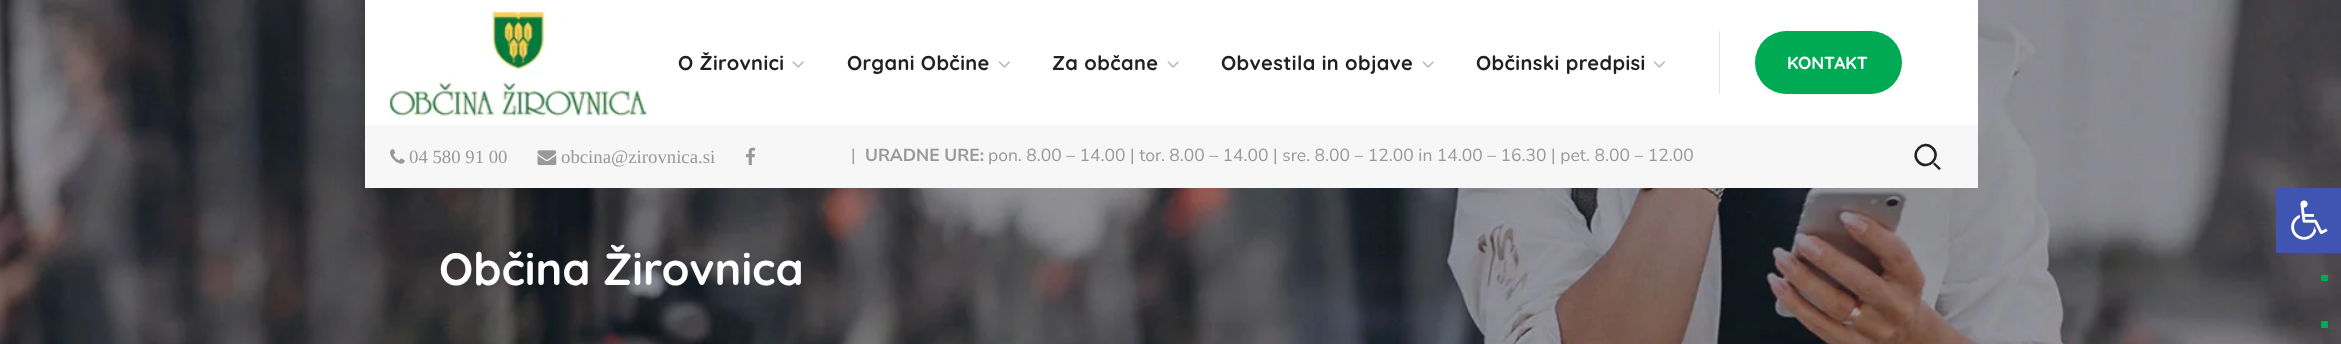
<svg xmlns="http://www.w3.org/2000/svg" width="2341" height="344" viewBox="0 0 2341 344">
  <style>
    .t1 { font: bold 20px Quicksand; letter-spacing: 0.4px; fill: #212121; }
    .t2 { font: bold 17.5px Quicksand; fill: #fefefe; }
    .t3 { font: 18.75px Liberation Serif; fill: #999; }
    .t4 { font: 17.5px Nunito Sans; fill: #999; }
    .t5 { font: bold 17.5px Nunito Sans; fill: #999; }
    .t6 { font: bold 45px Quicksand; fill: #fefefe; }
  </style>
  <rect width="100%" height="100%" fill="#fff"/>
  <image x="0" y="0" width="2341" height="344" href="images/7.png"/>
  <rect x="365" y="0" width="1613" height="125" fill="#fff"/>
  <image x="385" y="10" width="262" height="107" href="images/1.png"/>
  <text x="678" y="70" class="t1">O Žirovnici</text>
  <image x="792" y="61" width="12" height="7" href="images/2.png"/>
  <text x="847" y="70" class="t1">Organi Občine</text>
  <image x="998" y="61" width="12" height="7" href="images/3.png"/>
  <text x="1052" y="70" class="t1">Za občane</text>
  <image x="1167" y="61" width="12" height="7" href="images/2.png"/>
  <text x="1221" y="70" class="t1">Obvestila in objave</text>
  <image x="1422" y="61" width="12" height="7" href="images/2.png"/>
  <text x="1476" y="70" class="t1">Občinski predpisi</text>
  <image x="1653" y="61" width="12" height="7" href="images/3.png"/>
  <rect x="1719" y="31" width="1" height="63" fill="#e5e5e5"/>
  <rect x="1754.5" y="30.5" width="148" height="64" rx="32" fill="#0a5" stroke="#fff"/>
  <text x="1787" y="69" class="t2">KONTAKT</text>
  <rect x="365" y="125" width="1613" height="63" fill="#f7f7f7"/>
  <image x="390" y="149" width="15" height="15" href="images/4.png"/>
  <text x="409" y="163" class="t3">04 580 91 00</text>
  <image x="537" y="150" width="20" height="16" href="images/5.png"/>
  <text x="561" y="163" class="t3">obcina@zirovnica.si</text>
  <image x="746" y="147" width="9" height="19" href="images/6.png"/>
  <text x="851" y="161" class="t4">|</text>
  <text x="865" y="161" class="t5">URADNE URE:</text>
  <text x="988" y="161" class="t4">pon. 8.00 – 14.00 | tor. 8.00 – 14.00 | sre. 8.00 – 12.00 in 14.00 – 16.30 | pet. 8.00 – 12.00</text>
  <path d="M1932.5 148C1942 157 1928 171.5 1918.5 162C1909.5 153 1923.5 138.5 1932.5 148Z" fill="none" stroke="#212121" stroke-width="2.5"/>
  <path d="M1933 164L1934.5 162.5L1941 168.5L1939 170Z" fill="#212121"/>
  <text x="439" y="285" class="t6">Občina Žirovnica</text>
  <rect x="2276" y="188" width="65" height="65" fill="#4054b2"/>
  <image x="2291" y="200" width="37" height="40" href="images/8.png"/>
  <rect x="2321" y="275" width="7" height="6" fill="#0a5"/>
  <rect x="2321" y="321" width="7" height="7" fill="#0a5"/>
</svg>
